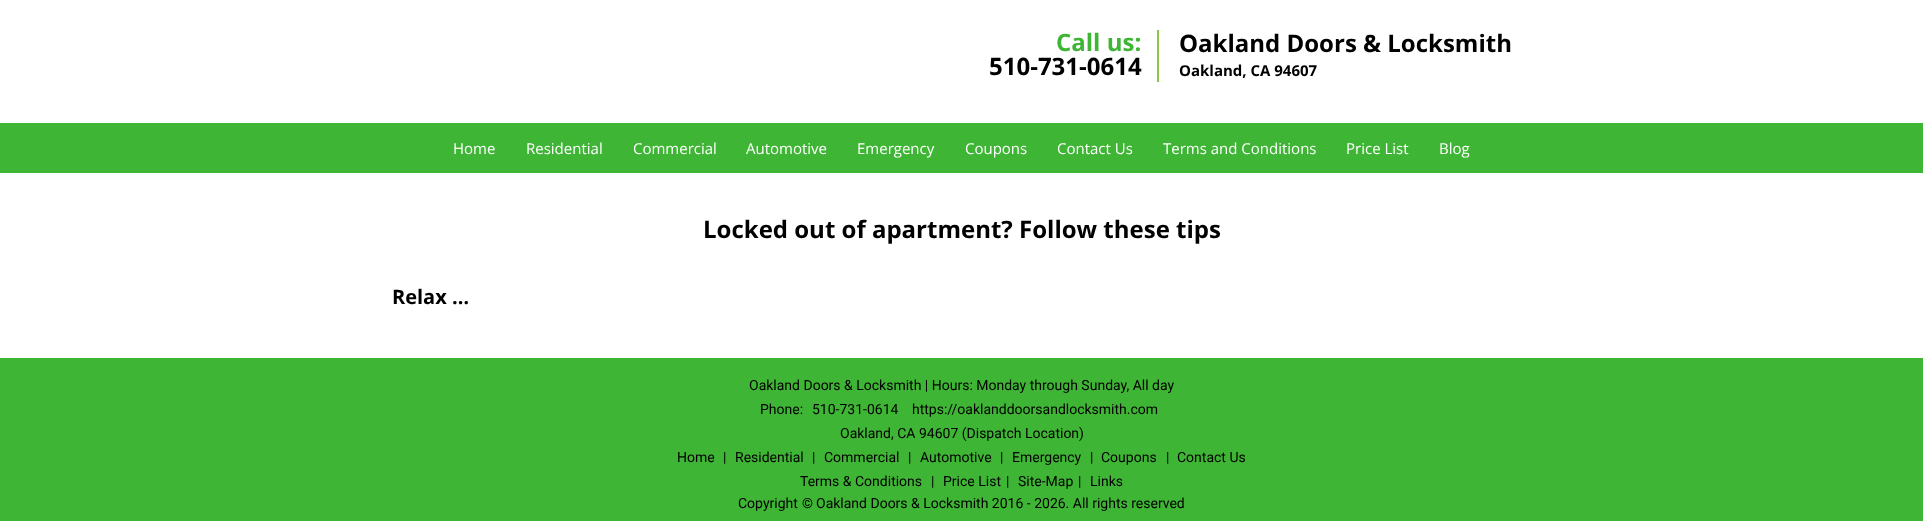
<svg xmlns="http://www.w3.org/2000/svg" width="1923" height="521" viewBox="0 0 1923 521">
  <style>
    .t1 { font: bold 24px Open Sans; fill: #3fb535; }
    .t2 { font: bold 24px Open Sans; fill: #000; }
    .t3 { font: bold 15px Open Sans; fill: #000; }
    .t4 { font: 15px Open Sans; fill: #fff; }
    .t5 { font: bold 20px Open Sans; fill: #000; }
    .t6 { font: 14px Roboto; fill: #000; }
    .t7 { font: bold 14px Roboto; fill: #000; }
  </style>
  <rect width="100%" height="100%" fill="#fff"/>
  <text x="1056" y="51" class="t1">Call us:</text>
  <text x="989" y="75" class="t2">510-731-0614</text>
  <rect x="1157" y="30" width="2" height="52" fill="#8cc449"/>
  <text x="1179" y="52" class="t2">Oakland Doors &amp; Locksmith</text>
  <text x="1179" y="76" class="t3">Oakland, CA 94607</text>
  <rect x="0" y="123" width="1923" height="50" fill="#3fb535"/>
  <text x="453" y="154" class="t4">Home</text>
  <text x="526" y="154" class="t4">Residential</text>
  <text x="633" y="154" class="t4">Commercial</text>
  <text x="746" y="154" class="t4">Automotive</text>
  <text x="857" y="154" class="t4">Emergency</text>
  <text x="965" y="154" class="t4">Coupons</text>
  <text x="1057" y="154" class="t4">Contact Us</text>
  <text x="1163" y="154" class="t4">Terms and Conditions</text>
  <text x="1346" y="154" class="t4">Price List</text>
  <text x="1439" y="154" class="t4">Blog</text>
  <text x="703" y="238" class="t2">Locked out of apartment? Follow these tips</text>
  <text x="392" y="304" class="t5">Relax …</text>
  <rect x="0" y="358" width="1923" height="163" fill="#3fb535"/>
  <text x="749" y="390" class="t6">Oakland Doors &amp; Locksmith | Hours: Monday through Sunday, All day</text>
  <text x="760" y="414" class="t6">Phone:</text>
  <text x="812" y="414" class="t6">510-731-0614</text>
  <text x="912" y="414" class="t6">https://oaklanddoorsandlocksmith.com</text>
  <text x="840" y="438" class="t6">Oakland, CA 94607 (Dispatch Location)</text>
  <text x="677" y="462" class="t6">Home</text>
  <text x="723" y="462" class="t6">|</text>
  <text x="735" y="462" class="t6">Residential</text>
  <text x="812" y="462" class="t6">|</text>
  <text x="824" y="462" class="t6">Commercial</text>
  <text x="908" y="462" class="t6">|</text>
  <text x="920" y="462" class="t6">Automotive</text>
  <text x="1000" y="462" class="t6">|</text>
  <text x="1012" y="462" class="t6">Emergency</text>
  <text x="1090" y="462" class="t6">|</text>
  <text x="1101" y="462" class="t6">Coupons</text>
  <text x="1166" y="462" class="t6">|</text>
  <text x="1177" y="462" class="t6">Contact Us</text>
  <text x="800" y="486" class="t6">Terms &amp; Conditions</text>
  <text x="931" y="486" class="t6">|</text>
  <text x="943" y="486" class="t6">Price List</text>
  <text x="1006" y="486" class="t6">|</text>
  <text x="1018" y="486" class="t6">Site-Map</text>
  <text x="1078" y="486" class="t6">|</text>
  <text x="1090" y="486" class="t6">Links</text>
  <text x="738" y="508" class="t6">Copyright</text>
  <text x="802" y="508" class="t7">©</text>
  <text x="816" y="508" class="t6">Oakland Doors &amp; Locksmith 2016 - 2026. All rights reserved</text>
</svg>
